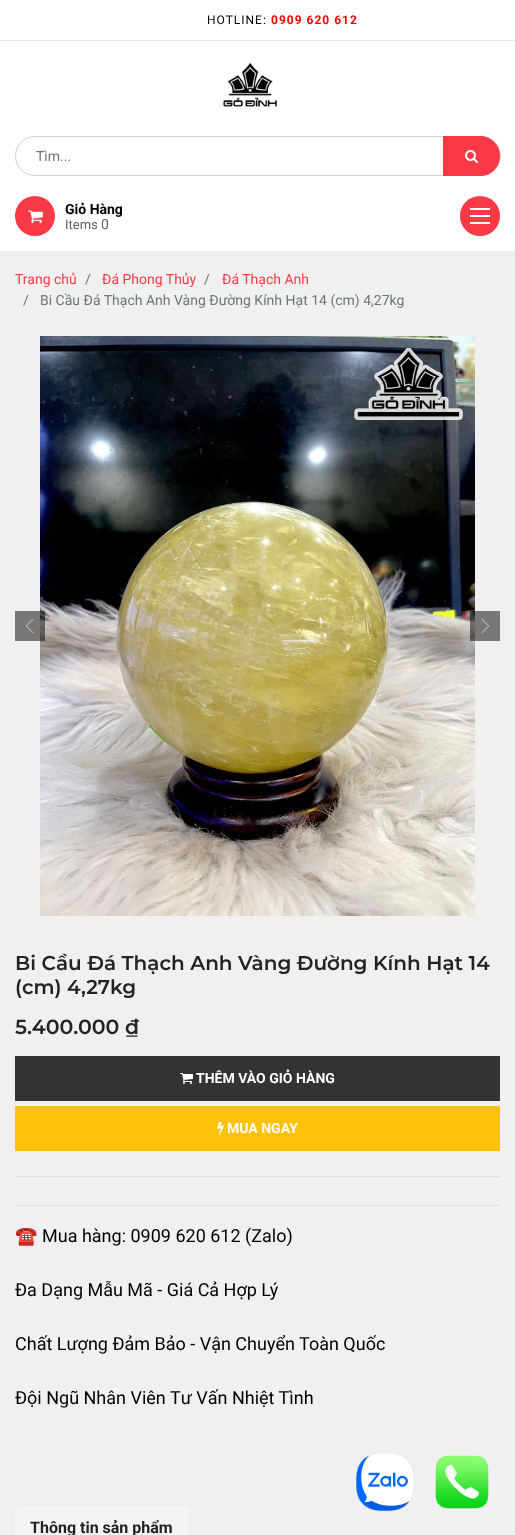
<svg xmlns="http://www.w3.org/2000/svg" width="515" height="1535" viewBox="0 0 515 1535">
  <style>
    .t1 { font: 12px Roboto; letter-spacing: 1px; fill: #000; }
    .t2 { font: bold 12px Roboto; letter-spacing: 1px; fill: #f00; }
    .t3 { font: 14px Roboto; fill: #6c757d; }
    .t4 { font: bold 14px Roboto; fill: #000; }
    .t5 { font: 13px Roboto; fill: #616161; }
    .t6 { font: 14px Roboto; fill: #616161; }
    .t7 { font: 14px Roboto; fill: #fa3946; }
    .t8 { font: 600 20px Montserrat; fill: #232323; }
    .t9 { font: 600 20.5px Montserrat; fill: #232323; }
    .t10 { font: bold 14px Roboto; fill: #fff; }
    .t11 { font: 18px Noto Color Emoji; fill: #000; }
    .t12 { font: 18px Roboto; fill: #000; }
    .t13 { font: bold 16px Roboto; fill: #232323; }
  </style>
  <rect width="100%" height="100%" fill="#f0f0f0"/>
  <rect x="0" y="0" width="515" height="251" fill="#fff"/>
  <rect x="0" y="40" width="515" height="1" fill="#e6e6e6"/>
  <text x="207" y="24" class="t1">HOTLINE:</text>
  <text x="271" y="24" class="t2">0909 620 612</text>
  <image x="223" y="62" width="54" height="45" href="images/1.png"/>
  <rect x="15.5" y="136.5" width="485" height="39" rx="19.5" fill="none" stroke="#d1d1d1"/>
  <text x="36" y="161" class="t3">Tìm...</text>
  <path d="M444 137H480C490.5 137 499 145.5 499 156C499 166.5 490.5 175 480 175H444Z" fill="#fa3946" stroke="#fa3946" stroke-width="2"/>
  <image x="465" y="150" width="13" height="13" href="images/2.png"/>
  <circle cx="35" cy="216" r="20" fill="#fa3946"/>
  <image x="28" y="210" width="15" height="14" href="images/3.png"/>
  <text x="65" y="214" class="t4">Giỏ Hàng</text>
  <text x="65" y="229" class="t5">Items</text>
  <text x="101" y="229" class="t6">0</text>
  <circle cx="480" cy="216" r="20" fill="#fa3946"/>
  <rect x="470" y="208" width="20" height="2" fill="#fff"/>
  <rect x="470" y="215" width="20" height="2" fill="#fff"/>
  <rect x="470" y="222" width="20" height="2" fill="#fff"/>
  <text x="15" y="284" class="t7">Trang chủ</text>
  <text x="85" y="284" class="t3">/</text>
  <text x="102" y="284" class="t7">Đá Phong Thủy</text>
  <text x="204" y="284" class="t3">/</text>
  <text x="222" y="284" class="t7">Đá Thạch Anh</text>
  <text x="23" y="305" class="t3">/</text>
  <text x="40" y="305" class="t3">Bi Cầu Đá Thạch Anh Vàng Đường Kính Hạt 14 (cm) 4,27kg</text>
  <image x="40" y="336" width="435" height="580" href="images/5.png"/>
  <rect x="15" y="611" width="30" height="30" fill="#00000080"/>
  <image x="25" y="618" width="9" height="16" href="images/4.png"/>
  <rect x="470" y="611" width="30" height="30" fill="#00000080"/>
  <image x="481" y="618" width="9" height="16" href="images/6.png"/>
  <text x="15" y="970" class="t8">Bi Cầu Đá Thạch Anh Vàng Đường Kính Hạt 14</text>
  <text x="15" y="994" class="t8">(cm) 4,27kg</text>
  <text x="15" y="1034" class="t9">5.400.000 ₫</text>
  <rect x="15" y="1056" width="485" height="45" fill="#333"/>
  <image x="180" y="1073" width="13" height="11" href="images/7.png"/>
  <text x="196" y="1083" class="t10">THÊM VÀO GIỎ HÀNG</text>
  <rect x="15" y="1106" width="485" height="45" fill="#ffc107"/>
  <image x="217" y="1122" width="7" height="13" href="images/8.png"/>
  <text x="227" y="1133" class="t10">MUA NGAY</text>
  <rect x="15" y="1176" width="485" height="1" fill="#dfdfdf"/>
  <rect x="15" y="1205" width="485" height="1" fill="#dfdfdf"/>
  <text x="15" y="1242" class="t11">☎️</text>
  <text x="42" y="1242" class="t12">Mua hàng: 0909 620 612 (Zalo)</text>
  <text x="15" y="1296" class="t12">Đa Dạng Mẫu Mã - Giá Cả Hợp Lý</text>
  <text x="15" y="1350" class="t12">Chất Lượng Đảm Bảo - Vận Chuyển Toàn Quốc</text>
  <text x="15" y="1404" class="t12">Đội Ngũ Nhân Viên Tư Vấn Nhiệt Tình</text>
  <path d="M20 1506H183C186 1506 188 1508 188 1511V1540H15V1511C15 1508 17 1506 20 1506Z" fill="#f5f5f5"/>
  <text x="30" y="1533" class="t13">Thông tin sản phẩm</text>
  <image x="356" y="1453" width="59" height="59" href="images/9.png"/>
  <image x="435" y="1455" width="54" height="54" href="images/10.png"/>
</svg>
